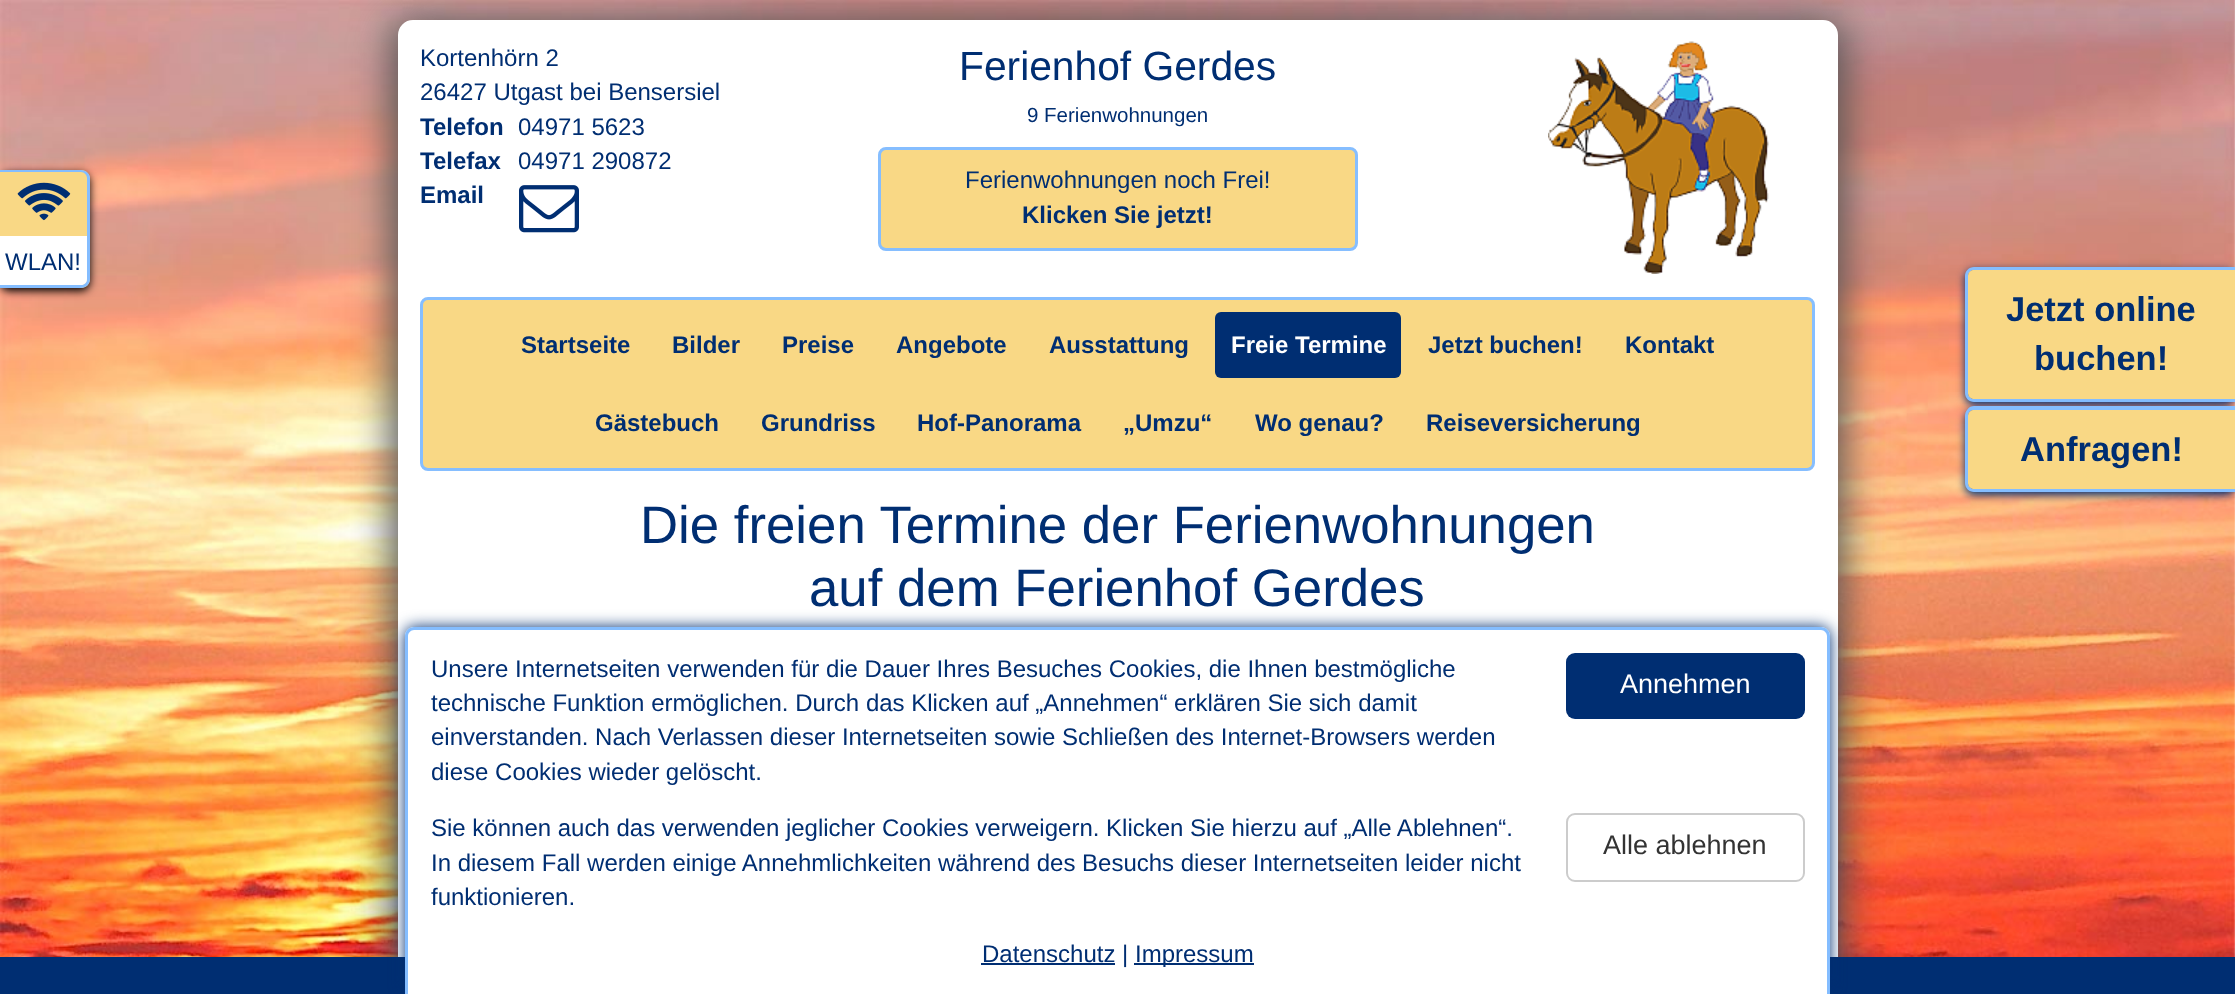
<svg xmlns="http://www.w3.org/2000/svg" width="2235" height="994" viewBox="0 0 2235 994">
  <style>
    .t1 { font: 24px Liberation Sans; fill: #002e72; }
    .t2 { font: bold 24px Liberation Sans; fill: #002e72; }
    .t3 { font: 40.75px Liberation Sans; fill: #002e72; }
    .t4 { font: 20.5px Liberation Sans; fill: #002e72; }
    .t5 { font: bold 24px Liberation Sans; fill: #fff; }
    .t6 { font: 52.75px Liberation Sans; fill: #002e72; }
    .t7 { font: bold 34.5px Liberation Sans; fill: #002e72; }
    .t8 { font: 27px Liberation Sans; fill: #fff; }
    .t9 { font: 27px Liberation Sans; fill: #333; }
  </style>
  <rect width="100%" height="100%" fill="#fff"/>
  <image x="0" y="0" width="2235" height="957" href="images/1.png"/>
  <rect x="0" y="173" width="90" height="118" rx="9" fill="#000" filter="blur(4px)"/>
  <path d="M0 170H81C86 170 90 174 90 179V279C90 284 86 288 81 288H0Z" fill="#f9d885"/>
  <path d="M0 170H81C86 170 90 174 90 178V279C90 284 86 288 81 288H0ZM0 172H81C84 172 87 175 87 178V279C87 282 84 285 81 285H0Z" fill="#84bdff" fill-rule="evenodd"/>
  <image x="17" y="182" width="54" height="39" href="images/2.png"/>
  <path d="M0 236H87V279C87 282.5 84.5 285 81 285H0Z" fill="#fff"/>
  <text x="5" y="270" class="t1">WLAN!</text>
  <rect x="390" y="20" width="1455" height="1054" rx="23" fill="#555" filter="blur(19px)"/>
  <rect x="409.5" y="31.5" width="1417" height="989" rx="3.5" fill="none" stroke="#fff" stroke-width="23"/>
  <rect x="421" y="43" width="1394" height="584" fill="#fff"/>
  <text x="420" y="66" class="t1">Kortenhörn 2</text>
  <text x="420" y="100" class="t1">26427 Utgast bei Bensersiel</text>
  <text x="420" y="135" class="t2">Telefon</text>
  <text x="518" y="135" class="t1">04971 5623</text>
  <text x="420" y="169" class="t2">Telefax</text>
  <text x="518" y="169" class="t1">04971 290872</text>
  <text x="420" y="203" class="t2">Email</text>
  <image x="519" y="185" width="60" height="48" href="images/3.png"/>
  <text x="959" y="80" class="t3">Ferienhof Gerdes</text>
  <text x="1027" y="122" class="t4">9 Ferienwohnungen</text>
  <rect x="879.5" y="148.5" width="477" height="101" rx="6.5" fill="#f9d885" stroke="#86beff" stroke-width="3"/>
  <text x="965" y="188" class="t1">Ferienwohnungen noch Frei!</text>
  <text x="1022" y="223" class="t2">Klicken Sie jetzt!</text>
  <image x="1548" y="41" width="221" height="233" href="images/4.png"/>
  <rect x="421.5" y="298.5" width="1392" height="171" rx="6.5" fill="#f9d885" stroke="#86beff" stroke-width="3"/>
  <text x="521" y="353" class="t2">Startseite</text>
  <text x="672" y="353" class="t2">Bilder</text>
  <text x="782" y="353" class="t2">Preise</text>
  <text x="896" y="353" class="t2">Angebote</text>
  <text x="1049" y="353" class="t2">Ausstattung</text>
  <rect x="1215" y="312" width="186" height="66" rx="6" fill="#002e72"/>
  <text x="1231" y="353" class="t5">Freie Termine</text>
  <text x="1428" y="353" class="t2">Jetzt buchen!</text>
  <text x="1625" y="353" class="t2">Kontakt</text>
  <text x="595" y="431" class="t2">Gästebuch</text>
  <text x="761" y="431" class="t2">Grundriss</text>
  <text x="917" y="431" class="t2">Hof-Panorama</text>
  <text x="1123" y="431" class="t2">„Umzu“</text>
  <text x="1255" y="431" class="t2">Wo genau?</text>
  <text x="1426" y="431" class="t2">Reiseversicherung</text>
  <text x="640" y="543" class="t6">Die freien Termine der Ferienwohnungen</text>
  <text x="809" y="606" class="t6">auf dem Ferienhof Gerdes</text>
  <rect x="1965" y="270" width="270" height="135" rx="9" fill="#002e72" filter="blur(4px)"/>
  <path d="M1974 267H2235V402H1974C1969 402 1965 398 1965 393V276C1965 271 1969 267 1974 267ZM1974 270H2235V399H1974C1971 399 1968 396 1968 393V276C1968 273 1971 270 1974 270Z" fill="#84bdff" fill-rule="evenodd"/>
  <path d="M1974 270H2235V399H1974C1970.5 399 1968 396.5 1968 393V276C1968 272.5 1970.5 270 1974 270Z" fill="#f9d885"/>
  <text x="2006" y="321" class="t7">Jetzt online</text>
  <text x="2034" y="370" class="t7">buchen!</text>
  <rect x="1965" y="410" width="270" height="85" rx="9" fill="#002e72" filter="blur(4px)"/>
  <path d="M1974 406H2235V492H1974C1969 492 1965 488 1965 483V416C1965 411 1969 406 1974 406ZM1974 410H2235V489H1974C1971 489 1968 486 1968 483V416C1968 412 1971 410 1974 410Z" fill="#84bdff" fill-rule="evenodd"/>
  <path d="M1974 410H2235V489H1974C1970.5 489 1968 486.5 1968 483V416C1968 412.5 1970.5 410 1974 410Z" fill="#f9d885"/>
  <text x="2020" y="461" class="t7">Anfragen!</text>
  <rect x="0" y="957" width="405" height="37" fill="#002e72"/>
  <rect x="1830" y="957" width="405" height="37" fill="#002e72"/>
  <rect x="405" y="627" width="1425" height="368" rx="9" fill="#002e72" filter="blur(7.5px)"/>
  <path d="M414 627H1821C1826 627 1830 631 1830 636V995H405V636C405 631 409 627 414 627Z" fill="#fff"/>
  <path d="M414 627H1821C1826 627 1830 631 1830 636V994H405V636C405 631 409 627 414 627ZM414 630H1821C1824 630 1827 633 1827 636V994H408V636C408 633 411 630 414 630Z" fill="#84bdff" fill-rule="evenodd"/>
  <text x="431" y="677" class="t1">Unsere Internetseiten verwenden für die Dauer Ihres Besuches Cookies, die Ihnen bestmögliche</text>
  <text x="431" y="711" class="t1">technische Funktion ermöglichen. Durch das Klicken auf „Annehmen“ erklären Sie sich damit</text>
  <text x="431" y="745" class="t1">einverstanden. Nach Verlassen dieser Internetseiten sowie Schließen des Internet-Browsers werden</text>
  <text x="431" y="780" class="t1">diese Cookies wieder gelöscht.</text>
  <rect x="1566" y="653" width="239" height="66" rx="9" fill="#002e72"/>
  <text x="1620" y="693" class="t8">Annehmen</text>
  <text x="431" y="836" class="t1">Sie können auch das verwenden jeglicher Cookies verweigern. Klicken Sie hierzu auf „Alle Ablehnen“.</text>
  <text x="431" y="871" class="t1">In diesem Fall werden einige Annehmlichkeiten während des Besuchs dieser Internetseiten leider nicht</text>
  <text x="431" y="905" class="t1">funktionieren.</text>
  <rect x="1567" y="814" width="237" height="67" rx="8" fill="none" stroke="#ccc" stroke-width="2"/>
  <text x="1603" y="854" class="t9">Alle ablehnen</text>
  <rect x="981" y="963" width="134" height="2" fill="#002e72"/>
  <text x="982" y="962" class="t1">Datenschutz |</text>
  <rect x="1134" y="963" width="120" height="2" fill="#002e72"/>
  <text x="1135" y="962" class="t1">Impressum</text>
</svg>
